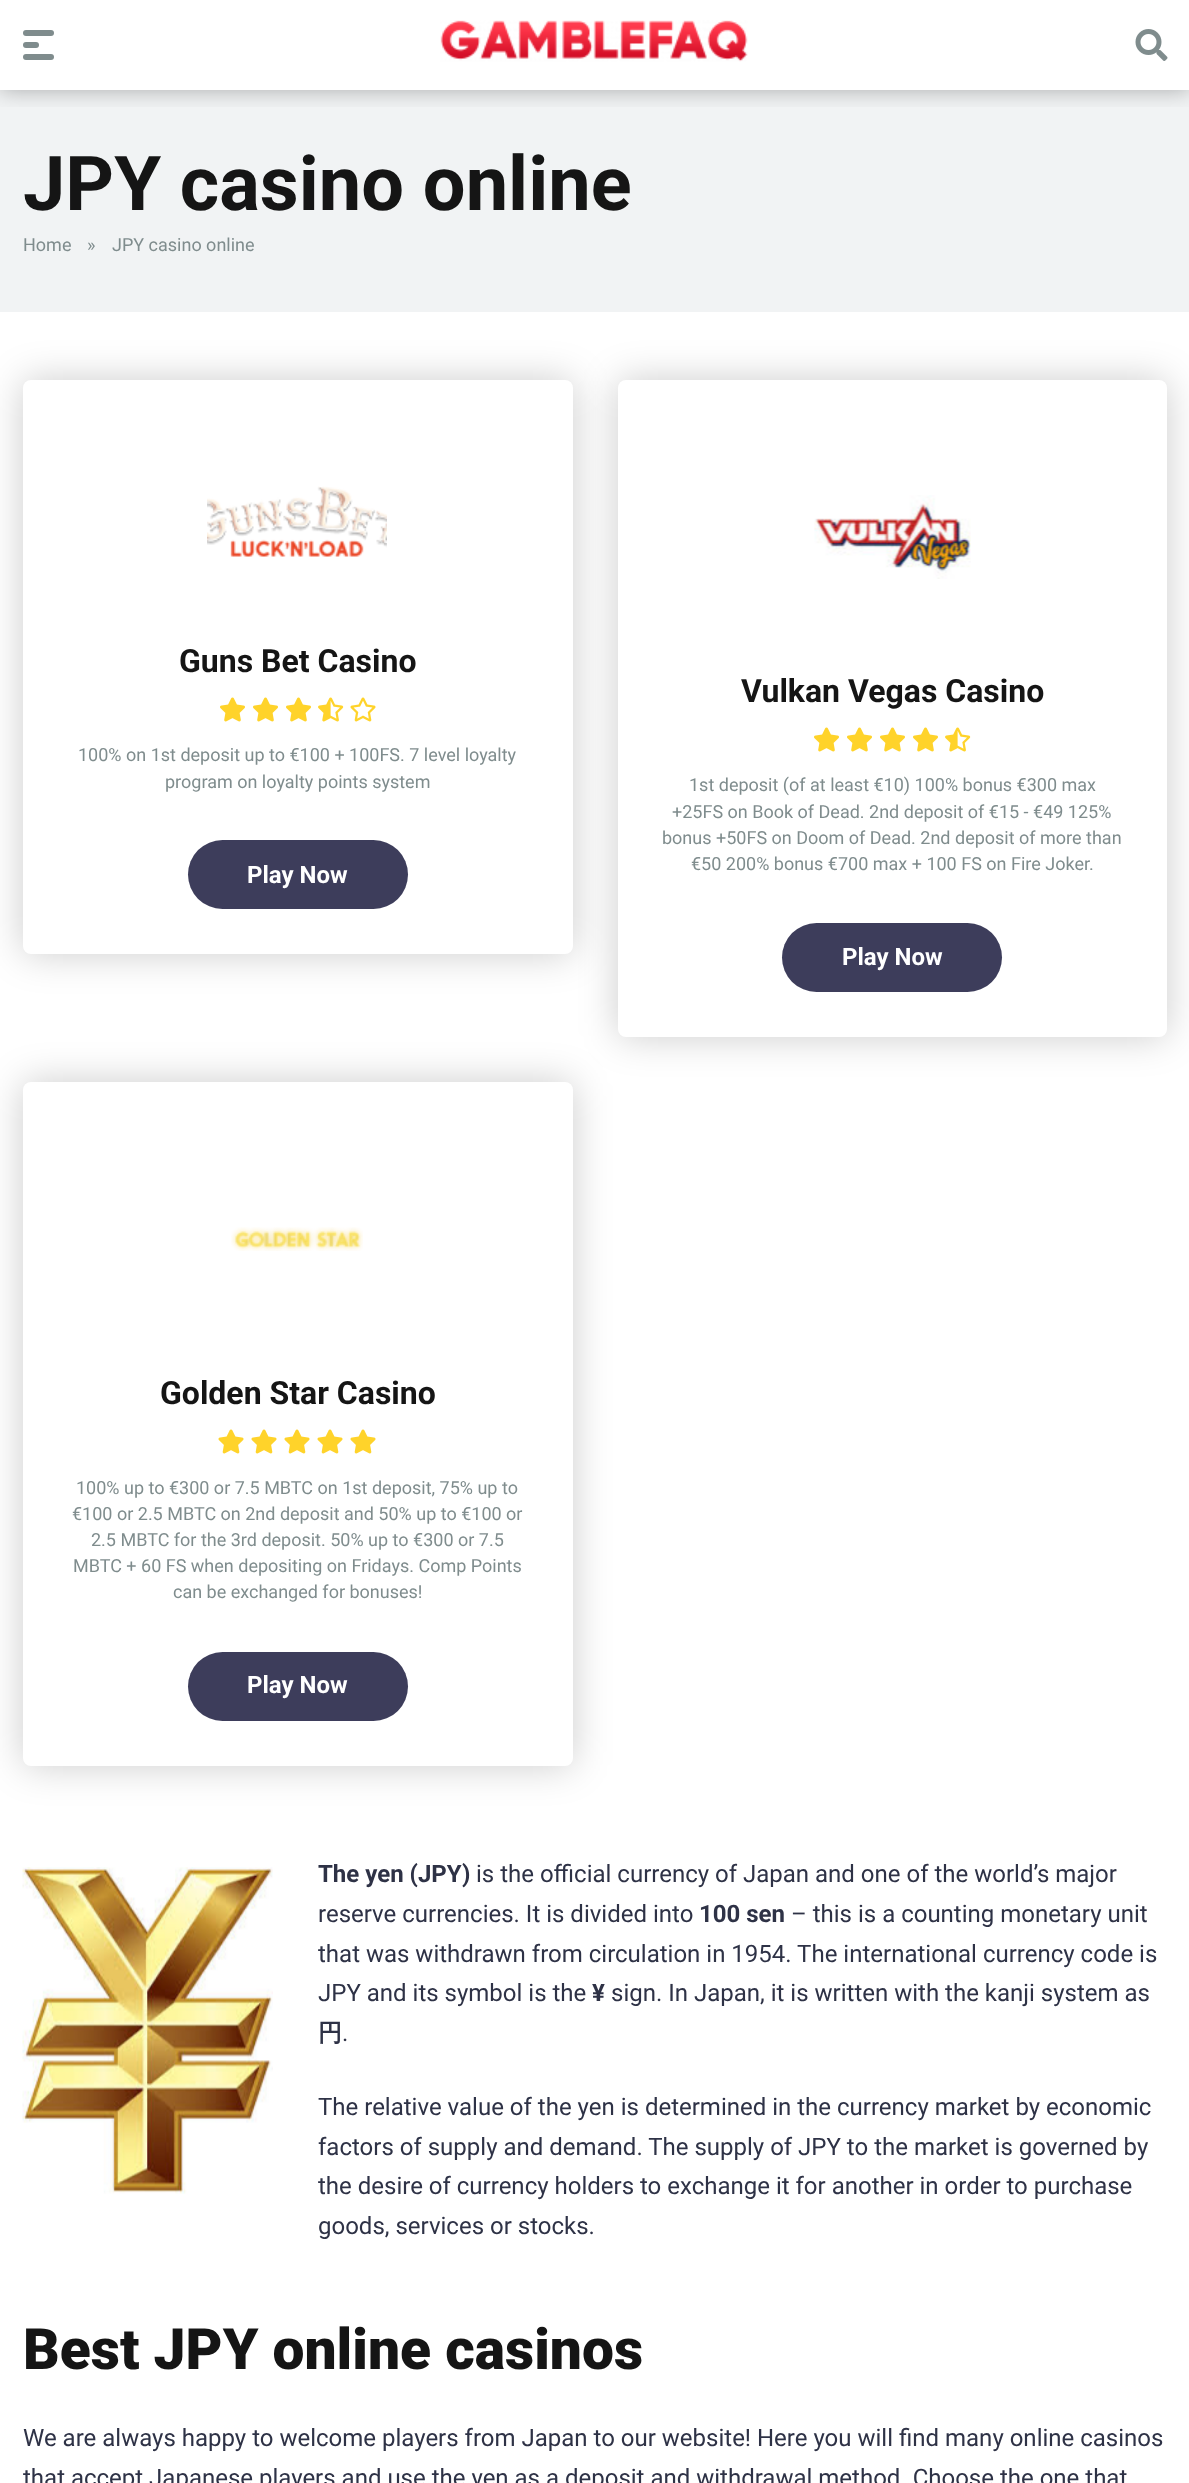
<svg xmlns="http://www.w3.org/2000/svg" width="1189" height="2483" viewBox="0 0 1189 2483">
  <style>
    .t1 { font: bold 75.75px Roboto; fill: #151515; }
    .t2 { font: 18px Roboto; fill: #7f8c8d; }
    .t3 { font: bold 32px Roboto; fill: #151515; }
    .t4 { font: bold 24px Roboto; fill: #fff; }
    .t5 { font: bold 24px Roboto; fill: #2e3246; }
    .t6 { font: 24px Roboto; fill: #2e3246; }
    .t7 { font: bold 24px WenQuanYi Zen Hei; fill: #2e3246; }
    .t8 { font: 900 56.9px Roboto; fill: #151515; }
  </style>
  <defs>
    <clipPath id="clip1"><rect x="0" y="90" width="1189" height="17"/></clipPath>
  </defs>
  <rect width="100%" height="100%" fill="#fff"/>
  <rect x="0" y="90" width="1189" height="222" fill="#f1f3f4"/>
  <g clip-path="url(#clip1)">
    <rect x="0" y="0" width="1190" height="90" fill="#0000004d" filter="blur(11px)"/>
  </g>
  <rect x="23" y="30" width="31" height="6" rx="3" fill="#7f8c8d"/>
  <rect x="23" y="42" width="16" height="6" rx="3" fill="#7f8c8d"/>
  <rect x="23" y="54" width="31" height="6" rx="3" fill="#7f8c8d"/>
  <image x="440" y="20" width="308" height="42" href="images/1.png"/>
  <image x="1135" y="29" width="33" height="32" href="images/2.png"/>
  <text x="23" y="210" class="t1">JPY casino online</text>
  <text x="23" y="251" class="t2">Home</text>
  <text x="87" y="251" class="t2">»</text>
  <text x="112" y="251" class="t2">JPY casino online</text>
  <rect x="23" y="380" width="550" height="574" rx="8" fill="#00000033" filter="blur(19px)"/>
  <rect x="23" y="380" width="550" height="574" rx="8" fill="#fff"/>
  <image x="207" y="486" width="180" height="71" href="images/3.png"/>
  <text x="179" y="672" class="t3">Guns Bet Casino</text>
  <image x="220" y="697" width="25" height="25" href="images/4.png"/>
  <image x="253" y="697" width="25" height="25" href="images/4.png"/>
  <image x="286" y="697" width="25" height="25" href="images/4.png"/>
  <image x="318" y="697" width="26" height="25" href="images/5.png"/>
  <image x="350" y="697" width="26" height="25" href="images/6.png"/>
  <text x="78" y="761" class="t2">100% on 1st deposit up to €100 + 100FS. 7 level loyalty</text>
  <text x="165" y="788" class="t2">program on loyalty points system</text>
  <rect x="188" y="840" width="220" height="69" rx="34.5" fill="#3d3d5b"/>
  <text x="247" y="883" class="t4">Play Now</text>
  <rect x="618" y="380" width="549" height="657" rx="8" fill="#00000033" filter="blur(19px)"/>
  <rect x="618" y="380" width="549" height="657" rx="8" fill="#fff"/>
  <image x="814" y="495" width="157" height="84" href="images/7.png"/>
  <text x="741" y="702" class="t3">Vulkan Vegas Casino</text>
  <image x="814" y="727" width="25" height="25" href="images/4.png"/>
  <image x="847" y="727" width="25" height="25" href="images/4.png"/>
  <image x="880" y="727" width="25" height="25" href="images/4.png"/>
  <image x="913" y="727" width="25" height="25" href="images/4.png"/>
  <image x="945" y="727" width="26" height="25" href="images/5.png"/>
  <text x="689" y="791" class="t2">1st deposit (of at least €10) 100% bonus €300 max</text>
  <text x="672" y="818" class="t2">+25FS on Book of Dead. 2nd deposit of €15 - €49 125%</text>
  <text x="662" y="844" class="t2">bonus +50FS on Doom of Dead. 2nd deposit of more than</text>
  <text x="691" y="870" class="t2">€50 200% bonus €700 max + 100 FS on Fire Joker.</text>
  <rect x="782" y="923" width="220" height="69" rx="34.5" fill="#3d3d5b"/>
  <text x="842" y="965" class="t4">Play Now</text>
  <rect x="23" y="1082" width="550" height="684" rx="8" fill="#00000033" filter="blur(19px)"/>
  <rect x="23" y="1082" width="550" height="684" rx="8" fill="#fff"/>
  <image x="231" y="1227" width="132" height="24" href="images/8.png"/>
  <text x="160" y="1404" class="t3">Golden Star Casino</text>
  <image x="218" y="1429" width="26" height="25" href="images/9.png"/>
  <image x="251" y="1429" width="26" height="25" href="images/9.png"/>
  <image x="284" y="1429" width="26" height="25" href="images/9.png"/>
  <image x="317" y="1429" width="26" height="25" href="images/9.png"/>
  <image x="350" y="1429" width="26" height="25" href="images/9.png"/>
  <text x="76" y="1494" class="t2">100% up to €300 or 7.5 MBTC on 1st deposit, 75% up to</text>
  <text x="72" y="1520" class="t2">€100 or 2.5 MBTC on 2nd deposit and 50% up to €100 or</text>
  <text x="91" y="1546" class="t2">2.5 MBTC for the 3rd deposit. 50% up to €300 or 7.5</text>
  <text x="73" y="1572" class="t2">MBTC + 60 FS when depositing on Fridays. Comp Points</text>
  <text x="173" y="1598" class="t2">can be exchanged for bonuses!</text>
  <rect x="188" y="1652" width="220" height="69" rx="34.5" fill="#3d3d5b"/>
  <text x="247" y="1693" class="t4">Play Now</text>
  <image x="22" y="1867" width="251" height="327" href="images/10.png"/>
  <text x="318" y="1882" class="t5">The yen (JPY)</text>
  <text x="476" y="1882" class="t6">is the official currency of Japan and one of the world’s major</text>
  <text x="318" y="1922" class="t6">reserve currencies. It is divided into</text>
  <text x="699" y="1922" class="t5">100 sen</text>
  <text x="791" y="1922" class="t6">– this is a counting monetary unit</text>
  <text x="318" y="1962" class="t6">that was withdrawn from circulation in 1954. The international currency code is</text>
  <text x="318" y="2001" class="t6">JPY and its symbol is the</text>
  <text x="592" y="2001" class="t5">¥</text>
  <text x="611" y="2001" class="t6">sign. In Japan, it is written with the kanji system as</text>
  <text x="318" y="2041" class="t7">円</text>
  <text x="342" y="2041" class="t6">.</text>
  <text x="318" y="2115" class="t6">The relative value of the yen is determined in the currency market by economic</text>
  <text x="318" y="2155" class="t6">factors of supply and demand. The supply of JPY to the market is governed by</text>
  <text x="318" y="2194" class="t6">the desire of currency holders to exchange it for another in order to purchase</text>
  <text x="318" y="2234" class="t6">goods, services or stocks.</text>
  <text x="23" y="2369" class="t8">Best JPY online casinos</text>
  <text x="23" y="2446" class="t6">We are always happy to welcome players from Japan to our website! Here you will find many online casinos</text>
  <text x="23" y="2486" class="t6">that accept Japanese players and use the yen as a deposit and withdrawal method. Choose the one that</text>
</svg>
